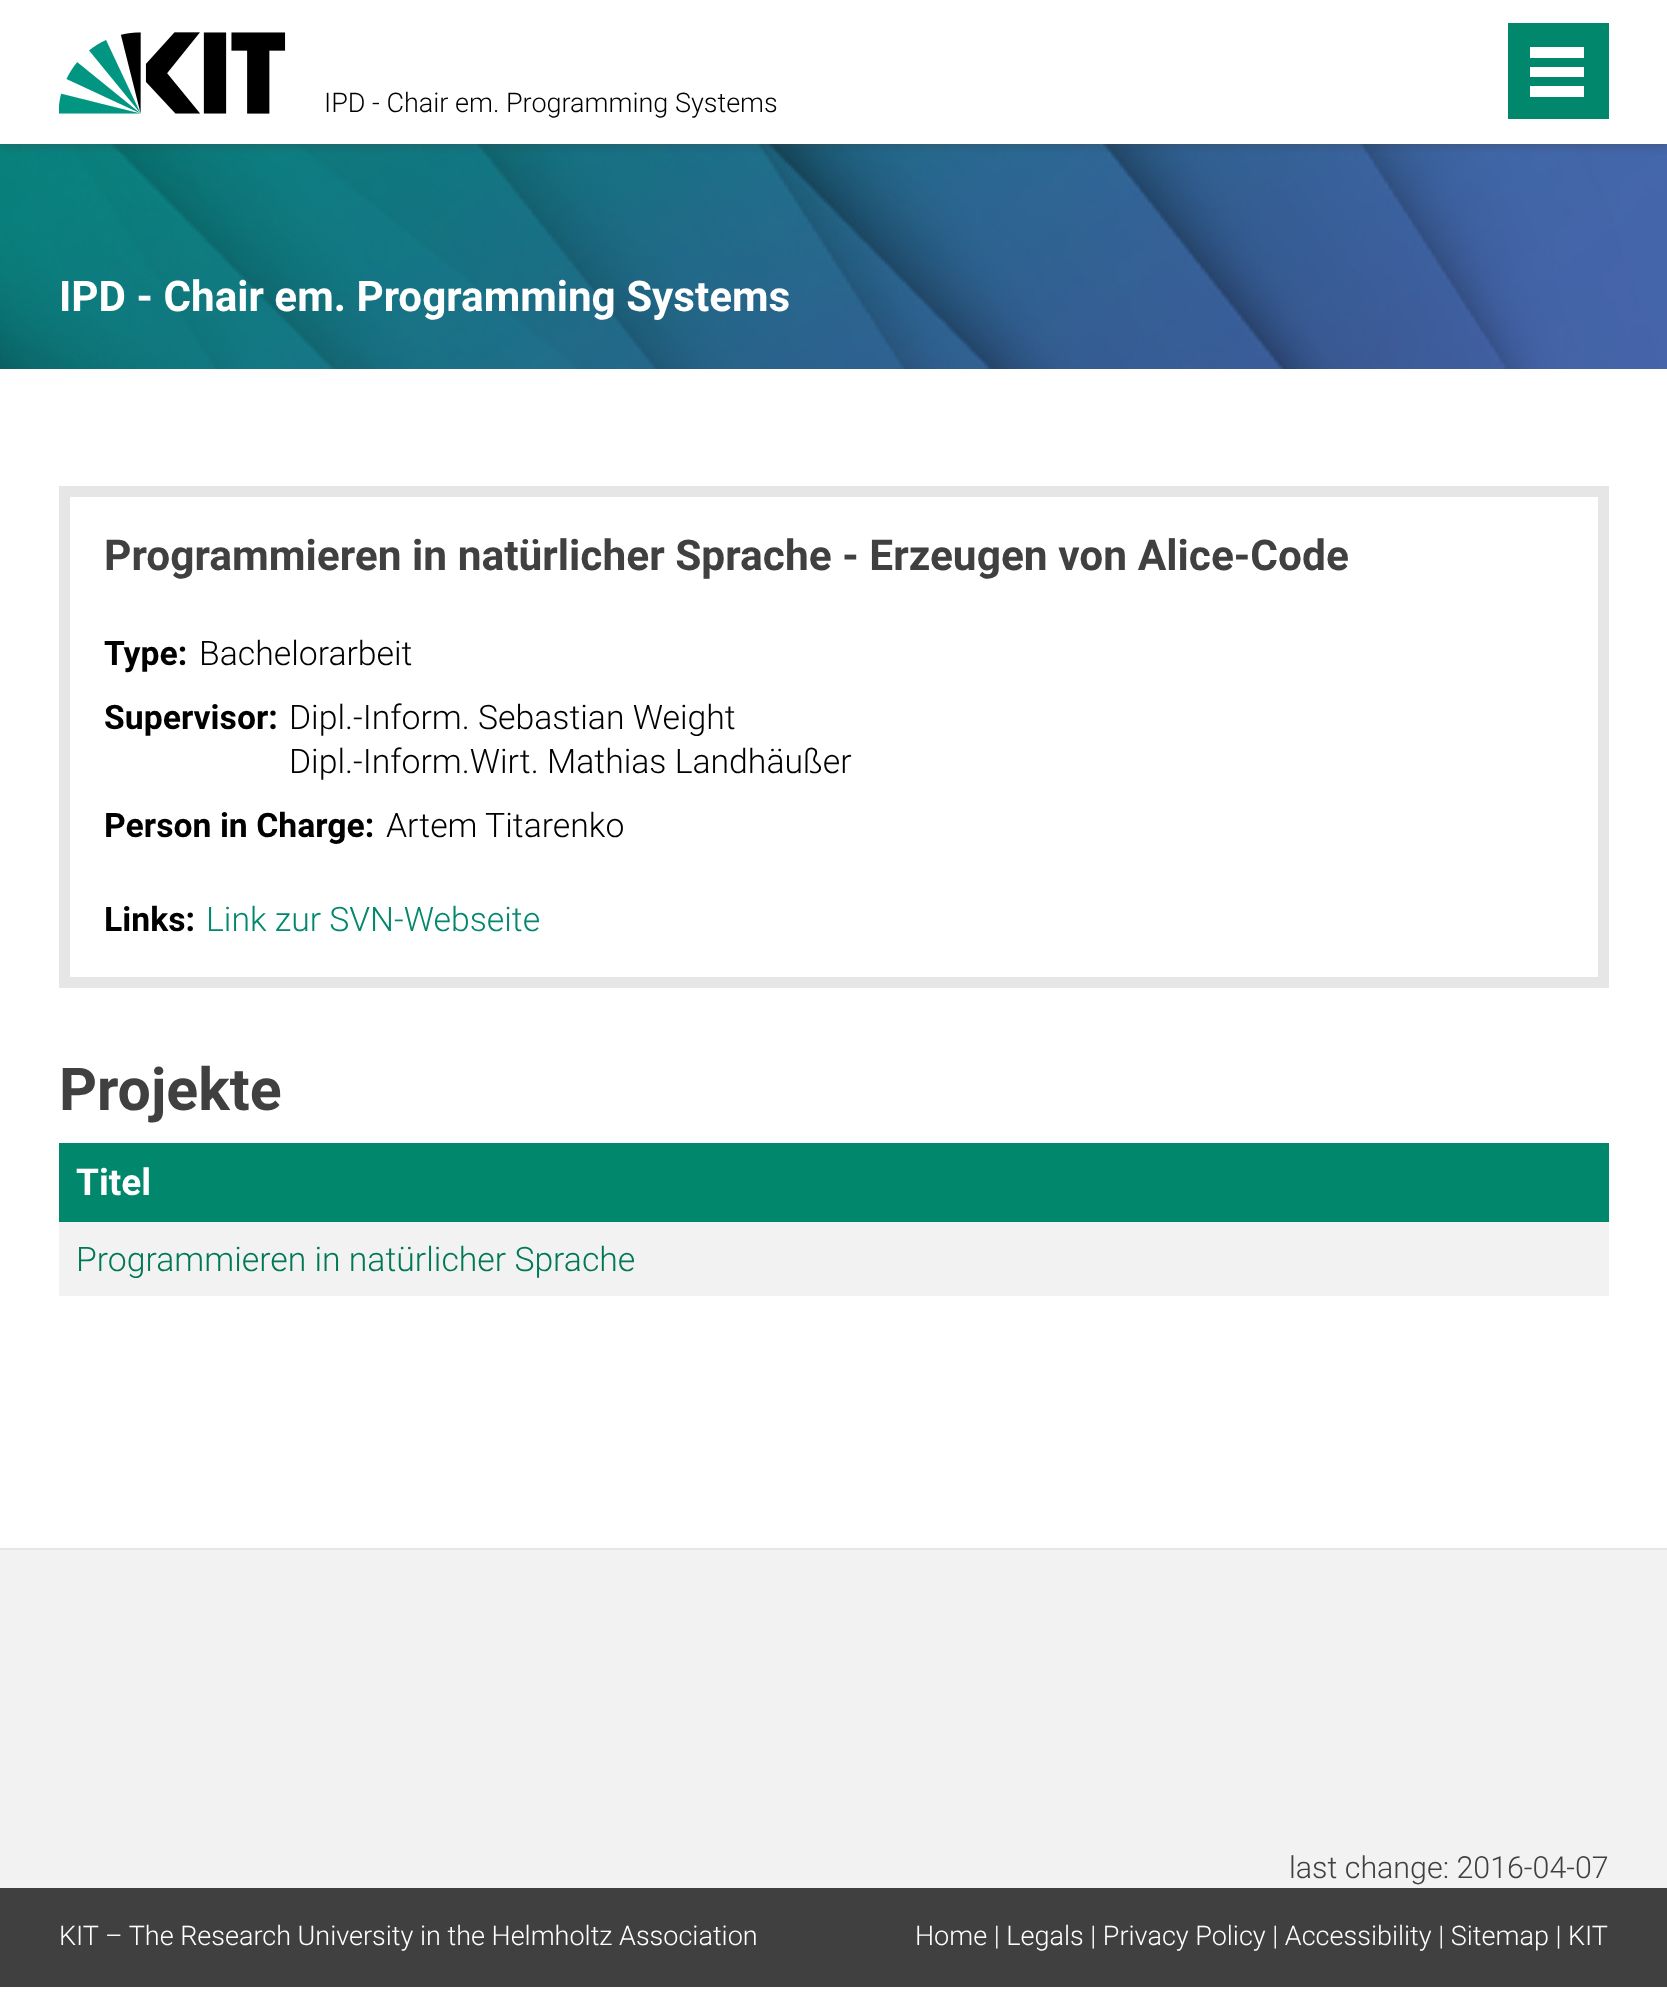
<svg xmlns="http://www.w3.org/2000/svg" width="1667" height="2004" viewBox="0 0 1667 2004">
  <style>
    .t1 { font: 300 27px Roboto; fill: #000; }
    .t2 { font: bold 42.2px Roboto; fill: #fff; }
    .t3 { font: bold 42.45px Roboto; fill: #404040; }
    .t4 { font: bold 33.75px Roboto; fill: #000; }
    .t5 { font: 300 33.75px Roboto; fill: #000; }
    .t6 { font: 300 33.75px Roboto; fill: #00876c; }
    .t7 { font: bold 59px Roboto; fill: #404040; }
    .t8 { font: bold 37px Roboto; fill: #fff; }
    .t9 { font: 300 33.75px Roboto; fill: #075; }
    .t10 { font: 300 30.4px Roboto; fill: #404040; }
    .t11 { font: 300 27px Roboto; fill: #fff; }
  </style>
  <defs>
    <clipPath id="clip1"><rect x="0" y="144" width="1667" height="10"/></clipPath>
  </defs>
  <rect width="100%" height="100%" fill="#fff"/>
  <image x="0" y="144" width="1667" height="225" href="images/2.png"/>
  <g clip-path="url(#clip1)">
    <rect x="0" y="0" width="1667" height="144" fill="#40404080" filter="blur(5.5px)"/>
  </g>
  <image x="59" y="32" width="227" height="82" href="images/1.png"/>
  <text x="324" y="112" class="t1">IPD - Chair em. Programming Systems</text>
  <rect x="1508" y="23" width="101" height="96" fill="#00876c"/>
  <rect x="1530" y="86" width="54" height="11" fill="#fff"/>
  <rect x="1530" y="67" width="54" height="10" fill="#fff"/>
  <rect x="1530" y="47" width="54" height="11" fill="#fff"/>
  <text x="59" y="311" class="t2">IPD - Chair em. Programming Systems</text>
  <rect x="64.5" y="491.5" width="1539" height="491" fill="none" stroke="#e6e6e6" stroke-width="11"/>
  <text x="104" y="570" class="t3">Programmieren in natürlicher Sprache - Erzeugen von Alice-Code</text>
  <text x="104" y="665" class="t4">Type:</text>
  <text x="199" y="665" class="t5">Bachelorarbeit</text>
  <text x="104" y="729" class="t4">Supervisor:</text>
  <text x="289" y="729" class="t5">Dipl.-Inform. Sebastian Weight</text>
  <text x="289" y="773" class="t5">Dipl.-Inform.Wirt. Mathias Landhäußer</text>
  <text x="104" y="837" class="t4">Person in Charge:</text>
  <text x="386" y="837" class="t5">Artem Titarenko</text>
  <text x="104" y="931" class="t4">Links:</text>
  <text x="206" y="931" class="t6">Link zur SVN-Webseite</text>
  <text x="59" y="1110" class="t7">Projekte</text>
  <rect x="59" y="1143" width="1550" height="79" fill="#00876c"/>
  <text x="76" y="1195" class="t8">Titel</text>
  <rect x="59" y="1222" width="1550" height="74" fill="#f2f2f2"/>
  <text x="76" y="1271" class="t9">Programmieren in natürlicher Sprache</text>
  <rect x="0" y="1550" width="1667" height="338" fill="#f2f2f2"/>
  <rect x="0" y="1548" width="1667" height="2" fill="#e6e6e6"/>
  <text x="1289" y="1878" class="t10">last change: 2016-04-07</text>
  <rect x="0" y="1888" width="1667" height="99" fill="#404040"/>
  <text x="59" y="1945" class="t11">KIT – The Research University in the Helmholtz Association</text>
  <text x="915" y="1945" class="t11">Home | Legals | Privacy Policy | Accessibility | Sitemap | KIT</text>
</svg>
